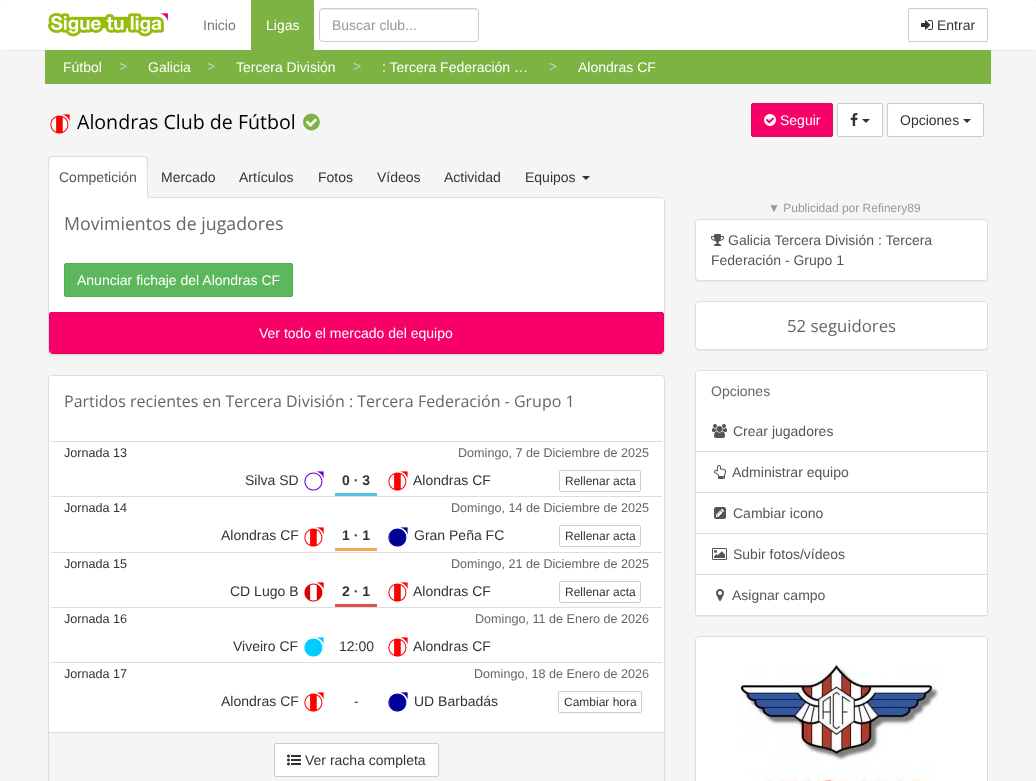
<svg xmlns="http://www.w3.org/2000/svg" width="1036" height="781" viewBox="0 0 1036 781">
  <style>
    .t1 { font: 14px Liberation Sans; fill: #777; }
    .t2 { font: 14px Liberation Sans; fill: #fff; }
    .t3 { font: 14px Liberation Sans; fill: #999; }
    .t4 { font: 14px Liberation Sans; fill: #333; }
    .t5 { font: 14px Liberation Sans; fill: #ccc; }
    .t6 { font: 19.6px Open Sans; fill: #000; }
    .t7 { font: 14px Liberation Sans; fill: #555; }
    .t8 { font: 17.75px Open Sans; fill: #666; }
    .t9 { font: 16px Open Sans; fill: #666; }
    .t10 { font: 12.6px Liberation Sans; fill: #333; }
    .t11 { font: 12.6px Liberation Sans; fill: #666; }
    .t12 { font: bold 14px Liberation Sans; fill: #333; }
    .t13 { font: 12px Liberation Sans; fill: #333; }
    .t14 { font: 12px Liberation Sans; fill: #999; }
    .t15 { font: 16.75px Open Sans; fill: #666; }
    .t16 { font: 14px Liberation Sans; fill: #666; }
  </style>
  <rect width="100%" height="100%" fill="#f5f5f5"/>
  <rect x="0" y="0" width="1036" height="51" rx="4" fill="#fff"/>
  <rect x="2" y="50" width="1032" height="1" fill="#e7e7e7"/>
  <image x="48" y="13" width="120" height="24" href="images/1.png"/>
  <text x="203" y="30" class="t1">Inicio</text>
  <rect x="251" y="0" width="63" height="50" fill="#7cb342"/>
  <text x="266" y="30" class="t2">Ligas</text>
  <path d="M323 10H475C477 10 478 11 478 13C478 11 477 9 475 9H322C320 9 320 11 320 13C320 11 321 10 323 10Z" fill="#ececec"/>
  <rect x="319.5" y="8.5" width="159" height="33" rx="3.5" fill="none" stroke="#ccc"/>
  <rect x="320" y="11" width="1" height="28" fill="#fff"/>
  <text x="332" y="30" class="t3">Buscar club...</text>
  <rect x="908.5" y="8.5" width="79" height="33" rx="1.5" fill="none" stroke="#ccc"/>
  <image x="921" y="20" width="12" height="10" href="images/2.png"/>
  <text x="937" y="30" class="t4">Entrar</text>
  <rect x="45" y="50" width="946" height="34" fill="#7cb342"/>
  <text x="63" y="72" class="t2">Fútbol</text>
  <text x="119" y="71" class="t5">&gt;</text>
  <text x="148" y="72" class="t2">Galicia</text>
  <text x="207" y="71" class="t5">&gt;</text>
  <text x="236" y="72" class="t2">Tercera División</text>
  <text x="353" y="71" class="t5">&gt;</text>
  <text x="382" y="72" class="t2">: Tercera Federación …</text>
  <text x="549" y="71" class="t5">&gt;</text>
  <text x="578" y="72" class="t2">Alondras CF</text>
  <path d="M59.5 116C70.5 116 70.5 133 59.5 133C48.5 133 48.5 116 59.5 116Z" fill="#fff"/>
  <image x="50" y="114" width="20" height="20" href="images/3.png"/>
  <text x="77" y="129" class="t6">Alondras Club de Fútbol</text>
  <image x="303" y="113" width="17" height="18" href="images/4.png"/>
  <rect x="751.5" y="103.5" width="81" height="33" rx="1.5" fill="#f70067" stroke="#e30360"/>
  <image x="764" y="114" width="12" height="12" href="images/5.png"/>
  <text x="780" y="125" class="t2">Seguir</text>
  <rect x="837.5" y="103.5" width="45" height="33" rx="1.5" fill="#fff" stroke="#ccc"/>
  <image x="850" y="113" width="8" height="13" href="images/6.png"/>
  <path d="M862 119H870L866 123Z" fill="#333"/>
  <rect x="887.5" y="103.5" width="96" height="33" rx="1.5" fill="#fff" stroke="#ccc"/>
  <text x="900" y="125" class="t4">Opciones</text>
  <path d="M963 119H971L967 123Z" fill="#333"/>
  <rect x="48" y="198" width="617" height="158" rx="4" fill="#0000000d" filter="blur(0.5px)"/>
  <rect x="48.5" y="197.5" width="616" height="157" rx="3.5" fill="#fff" stroke="#ddd"/>
  <path d="M52 156H144C146 156 148 158 148 160V198H48V160C48 158 50 156 52 156Z" fill="#fff"/>
  <path d="M52 156L49 157L50 158L52 157H144L146 158L147 157L144 156Z" fill="#ddd"/>
  <path d="M148 198V160C148 159 148 158 147 157L146 158C148 160 147 192 147 197Z" fill="#ddd"/>
  <path d="M48 198L49 197C49 192 48 160 50 158L49 157L48 160Z" fill="#ddd"/>
  <text x="59" y="182" class="t7">Competición</text>
  <text x="161" y="182" class="t4">Mercado</text>
  <text x="239" y="182" class="t4">Artículos</text>
  <text x="318" y="182" class="t4">Fotos</text>
  <text x="377" y="182" class="t4">Vídeos</text>
  <text x="444" y="182" class="t4">Actividad</text>
  <text x="525" y="182" class="t4">Equipos</text>
  <path d="M582 176H590L586 180Z" fill="#333"/>
  <path d="M52 198H661C662.5 198 664 199.5 664 201V248H49V201C49 199.5 50.5 198 52 198Z" fill="#fff"/>
  <text x="64" y="230" class="t8">Movimientos de jugadores</text>
  <rect x="64.5" y="263.5" width="228" height="33" rx="1.5" fill="#5cb85c" stroke="#4cae4c"/>
  <text x="77" y="285" class="t2">Anunciar fichaje del Alondras CF</text>
  <path d="M51 312.5H662C663 312.5 663.5 313 663.5 314V350C663.5 352 662 353.5 660 353.5H53C51 353.5 49.5 352 49.5 350V314C49.5 313 50 312.5 51 312.5Z" fill="#f70067" stroke="#e30360"/>
  <text x="259" y="338" class="t2">Ver todo el mercado del equipo</text>
  <rect x="48.5" y="375.5" width="616" height="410" rx="3.5" fill="#fff" stroke="#ddd"/>
  <path d="M52 376H661C662.5 376 664 377.5 664 379V426H49V379C49 377.5 50.5 376 52 376Z" fill="#fff"/>
  <text x="64" y="407" class="t9">Partidos recientes en Tercera División : Tercera Federación - Grupo 1</text>
  <rect x="51" y="441" width="611" height="1" fill="#ddd"/>
  <text x="64" y="457" class="t10">Jornada 13</text>
  <text x="458" y="457" class="t11">Domingo, 7 de Diciembre de 2025</text>
  <text x="245" y="485" class="t4">Silva SD</text>
  <image x="304" y="471" width="20" height="20" href="images/7.png"/>
  <text x="342" y="485" class="t12">0 · 3</text>
  <rect x="335" y="493" width="42" height="3" fill="#5bc0de"/>
  <image x="388" y="471" width="20" height="20" href="images/8.png"/>
  <text x="413" y="485" class="t4">Alondras CF</text>
  <rect x="559.5" y="470.5" width="81" height="21" rx="1.5" fill="none" stroke="#ccc"/>
  <text x="565" y="485" class="t13">Rellenar acta</text>
  <rect x="51" y="496" width="611" height="1" fill="#ddd"/>
  <text x="64" y="512" class="t10">Jornada 14</text>
  <text x="451" y="512" class="t11">Domingo, 14 de Diciembre de 2025</text>
  <text x="221" y="540" class="t4">Alondras CF</text>
  <image x="304" y="527" width="20" height="20" href="images/8.png"/>
  <text x="342" y="540" class="t12">1 · 1</text>
  <rect x="335" y="548" width="42" height="3" fill="#f0ad4e"/>
  <path d="M397.5 529C408.5 529 408.5 546 397.5 546C386.5 546 386.5 529 397.5 529Z" fill="#009"/>
  <image x="388" y="527" width="20" height="20" href="images/9.png"/>
  <text x="414" y="540" class="t4">Gran Peña FC</text>
  <rect x="559.5" y="525.5" width="81" height="21" rx="1.5" fill="none" stroke="#ccc"/>
  <text x="565" y="540" class="t13">Rellenar acta</text>
  <rect x="51" y="552" width="611" height="1" fill="#ddd"/>
  <text x="64" y="568" class="t10">Jornada 15</text>
  <text x="451" y="568" class="t11">Domingo, 21 de Diciembre de 2025</text>
  <text x="230" y="596" class="t4">CD Lugo B</text>
  <image x="304" y="582" width="20" height="20" href="images/10.png"/>
  <text x="342" y="596" class="t12">2 · 1</text>
  <rect x="335" y="604" width="42" height="3" fill="#d9534f"/>
  <image x="388" y="582" width="20" height="20" href="images/8.png"/>
  <text x="413" y="596" class="t4">Alondras CF</text>
  <rect x="559.5" y="581.5" width="81" height="21" rx="1.5" fill="none" stroke="#ccc"/>
  <text x="565" y="596" class="t13">Rellenar acta</text>
  <rect x="51" y="607" width="611" height="1" fill="#ddd"/>
  <text x="64" y="623" class="t10">Jornada 16</text>
  <text x="475" y="623" class="t11">Domingo, 11 de Enero de 2026</text>
  <text x="233" y="651" class="t4">Viveiro CF</text>
  <path d="M313.5 639C324.5 639 324.5 656 313.5 656C302.5 656 302.5 639 313.5 639Z" fill="#0cf"/>
  <image x="304" y="637" width="20" height="20" href="images/11.png"/>
  <text x="339" y="651" class="t4">12:00</text>
  <image x="388" y="637" width="20" height="20" href="images/8.png"/>
  <text x="413" y="651" class="t4">Alondras CF</text>
  <rect x="51" y="662" width="611" height="1" fill="#ddd"/>
  <text x="64" y="678" class="t10">Jornada 17</text>
  <text x="474" y="678" class="t11">Domingo, 18 de Enero de 2026</text>
  <text x="221" y="706" class="t4">Alondras CF</text>
  <image x="304" y="692" width="20" height="20" href="images/8.png"/>
  <text x="354" y="706" class="t4">-</text>
  <path d="M397.5 694C408.5 694 408.5 711 397.5 711C386.5 711 386.5 694 397.5 694Z" fill="#009"/>
  <image x="388" y="692" width="20" height="20" href="images/9.png"/>
  <text x="414" y="706" class="t4">UD Barbadás</text>
  <rect x="558.5" y="691.5" width="83" height="21" rx="1.5" fill="none" stroke="#ccc"/>
  <text x="564" y="706" class="t13">Cambiar hora</text>
  <rect x="49" y="733" width="615" height="48" fill="#f5f5f5"/>
  <rect x="49" y="732" width="615" height="1" fill="#ddd"/>
  <rect x="274.5" y="743.5" width="164" height="33" rx="1.5" fill="#fff" stroke="#ccc"/>
  <image x="287" y="754" width="14" height="12" href="images/12.png"/>
  <text x="305" y="765" class="t4">Ver racha completa</text>
  <text x="768" y="212" class="t14">▼ Publicidad por Refinery89</text>
  <rect x="695" y="220" width="293" height="62" rx="4" fill="#0000000d" filter="blur(0.5px)"/>
  <rect x="695.5" y="219.5" width="292" height="61" rx="3.5" fill="none" stroke="#ddd"/>
  <rect x="696" y="220" width="291" height="60" rx="3" fill="#fff"/>
  <image x="711" y="234" width="13" height="12" href="images/13.png"/>
  <text x="728" y="245" class="t7">Galicia Tercera División : Tercera</text>
  <text x="711" y="265" class="t7">Federación - Grupo 1</text>
  <rect x="695" y="302" width="293" height="49" rx="4" fill="#0000000d" filter="blur(0.5px)"/>
  <rect x="695.5" y="301.5" width="292" height="48" rx="3.5" fill="#fff" stroke="#ddd"/>
  <text x="787" y="332" class="t15">52 seguidores</text>
  <rect x="695" y="371" width="293" height="246" rx="4" fill="#0000000d" filter="blur(0.5px)"/>
  <rect x="695.5" y="370.5" width="292" height="245" rx="3.5" fill="#fff" stroke="#ddd"/>
  <path d="M699 371H984C985.5 371 987 372.5 987 374V411H696V374C696 372.5 697.5 371 699 371Z" fill="#fff"/>
  <text x="711" y="396" class="t16">Opciones</text>
  <rect x="696" y="451" width="291" height="1" fill="#ddd"/>
  <image x="712" y="424" width="15" height="14" href="images/14.png"/>
  <text x="733" y="436" class="t7">Crear jugadores</text>
  <rect x="696" y="492" width="291" height="1" fill="#ddd"/>
  <image x="714" y="465" width="12" height="14" href="images/15.png"/>
  <text x="732" y="477" class="t7">Administrar equipo</text>
  <rect x="696" y="533" width="291" height="1" fill="#ddd"/>
  <image x="714" y="507" width="12" height="12" href="images/16.png"/>
  <text x="733" y="518" class="t7">Cambiar icono</text>
  <rect x="696" y="574" width="291" height="1" fill="#ddd"/>
  <image x="712" y="548" width="15" height="12" href="images/17.png"/>
  <text x="733" y="559" class="t7">Subir fotos/vídeos</text>
  <rect x="696" y="612" width="291" height="3" fill="#fff"/>
  <rect x="696" y="615" width="291" height="1" fill="#ddd"/>
  <image x="716" y="589" width="8" height="12" href="images/18.png"/>
  <text x="732" y="600" class="t7">Asignar campo</text>
  <rect x="695.5" y="636.5" width="292" height="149" rx="3.5" fill="#fff" stroke="#ddd"/>
  <image x="741" y="664" width="198" height="117" href="images/19.png"/>
</svg>
